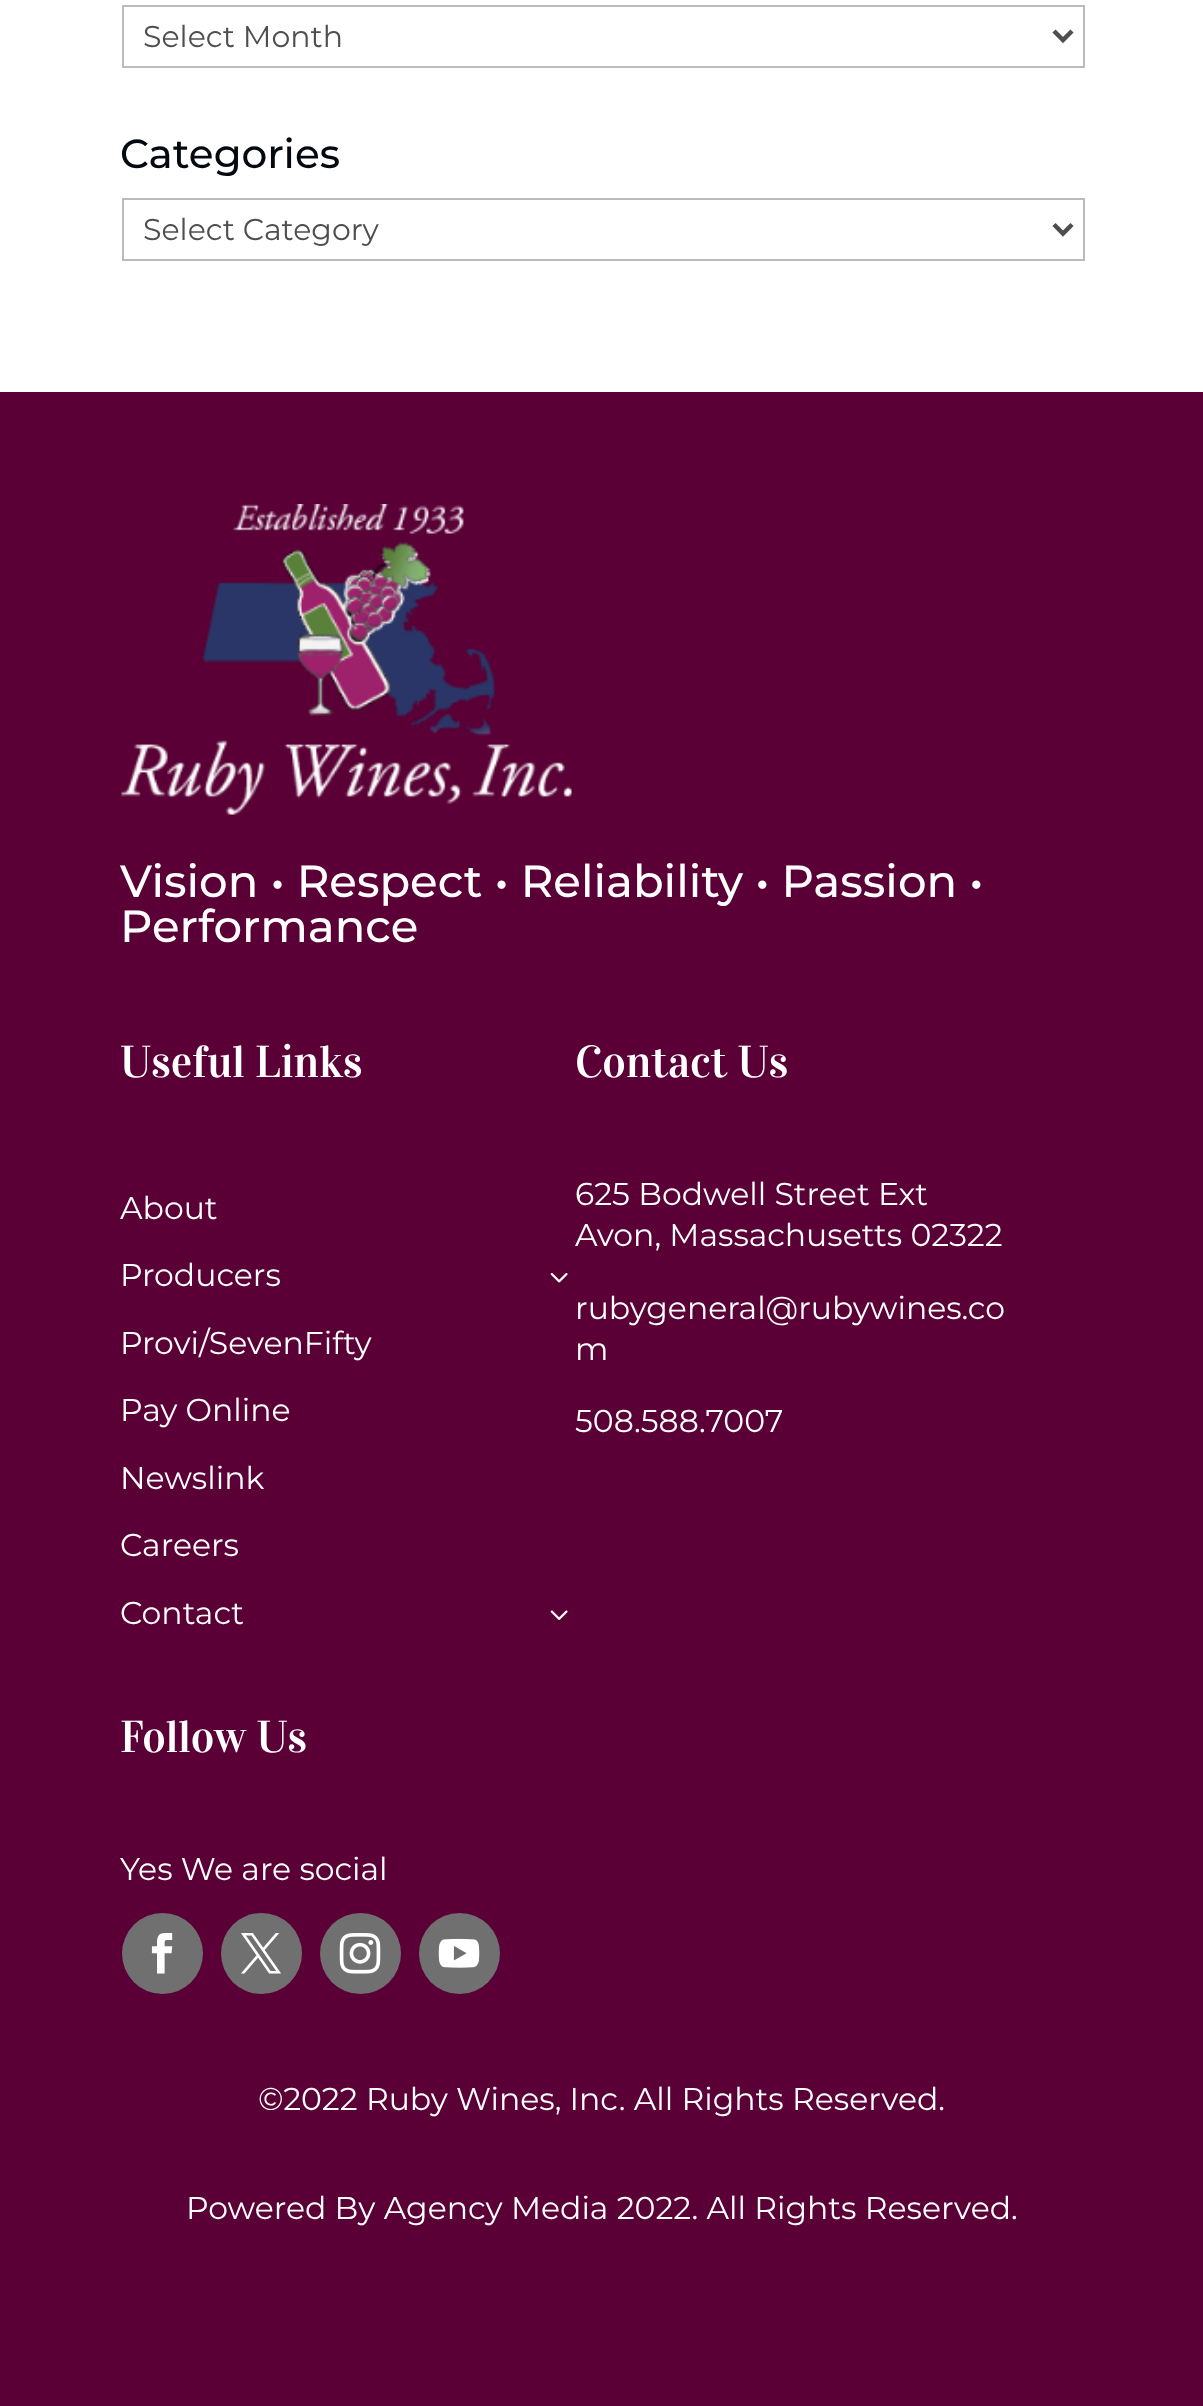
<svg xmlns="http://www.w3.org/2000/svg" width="1203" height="2406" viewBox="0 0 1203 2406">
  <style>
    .t1 { font: 100 30px Montserrat; fill: #4e4e4e; }
    .t2 { font: 100 40.5px 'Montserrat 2'; fill: #040810; }
    .t3 { font: 100 45px 'Montserrat 2'; fill: #fff; }
    .t4 { font: 45px Vidaloka; fill: #fff; }
    .t5 { font: 100 31.5px Montserrat; fill: #fff; }
  </style>
  <rect width="100%" height="100%" fill="#fff"/>
  <rect x="123" y="6" width="961" height="61" fill="none" stroke="#bbb" stroke-width="2"/>
  <path d="M1054 31L1063 40L1072 31" fill="none" stroke="#4e4e4e" stroke-width="4.5"/>
  <text x="143" y="47" class="t1">Select Month</text>
  <text x="120" y="168" class="t2">Categories</text>
  <rect x="123" y="199" width="961" height="61" fill="none" stroke="#bbb" stroke-width="2"/>
  <path d="M1054 224.5L1063 233.5L1072 224.5" fill="none" stroke="#4e4e4e" stroke-width="4.5"/>
  <text x="143" y="240" class="t1">Select Category</text>
  <rect x="0" y="392" width="1203" height="2014" fill="#5a0036"/>
  <image x="121" y="504" width="451" height="311" href="images/1.png"/>
  <text x="120" y="897" class="t3">Vision • Respect • Reliability • Passion •</text>
  <text x="120" y="942" class="t3">Performance</text>
  <text x="120" y="1077" class="t4">Useful Links</text>
  <text x="120" y="1219" class="t5">About</text>
  <text x="120" y="1286" class="t5">Producers</text>
  <image x="550" y="1273" width="18" height="10" href="images/2.png"/>
  <text x="120" y="1354" class="t5">Provi/SevenFifty</text>
  <text x="120" y="1421" class="t5">Pay Online</text>
  <text x="120" y="1489" class="t5">Newslink</text>
  <text x="120" y="1556" class="t5">Careers</text>
  <text x="120" y="1624" class="t5">Contact</text>
  <image x="550" y="1610" width="18" height="10" href="images/3.png"/>
  <text x="575" y="1077" class="t4">Contact Us</text>
  <text x="575" y="1205" class="t5">625 Bodwell Street Ext</text>
  <text x="575" y="1246" class="t5">Avon, Massachusetts 02322</text>
  <text x="575" y="1319" class="t5">rubygeneral@rubywines.co</text>
  <text x="575" y="1360" class="t5">m</text>
  <text x="575" y="1432" class="t5">508.588.7007</text>
  <text x="120" y="1752" class="t4">Follow Us</text>
  <text x="120" y="1880" class="t5">Yes We are social</text>
  <circle cx="162.5" cy="1953.5" r="40.5" fill="#707070"/>
  <image x="151" y="1933" width="22" height="41" href="images/4.png"/>
  <circle cx="261.5" cy="1953.5" r="40.5" fill="#707070"/>
  <image x="241" y="1933" width="40" height="41" href="images/5.png"/>
  <circle cx="360.5" cy="1953.5" r="40.5" fill="#707070"/>
  <image x="339" y="1933" width="42" height="41" href="images/6.png"/>
  <circle cx="459.5" cy="1953.5" r="40.5" fill="#707070"/>
  <image x="438" y="1938" width="42" height="30" href="images/7.png"/>
  <text x="258" y="2110" class="t5">©2022 Ruby Wines, Inc. All Rights Reserved.</text>
  <text x="186" y="2219" class="t5">Powered By Agency Media 2022. All Rights Reserved.</text>
</svg>
